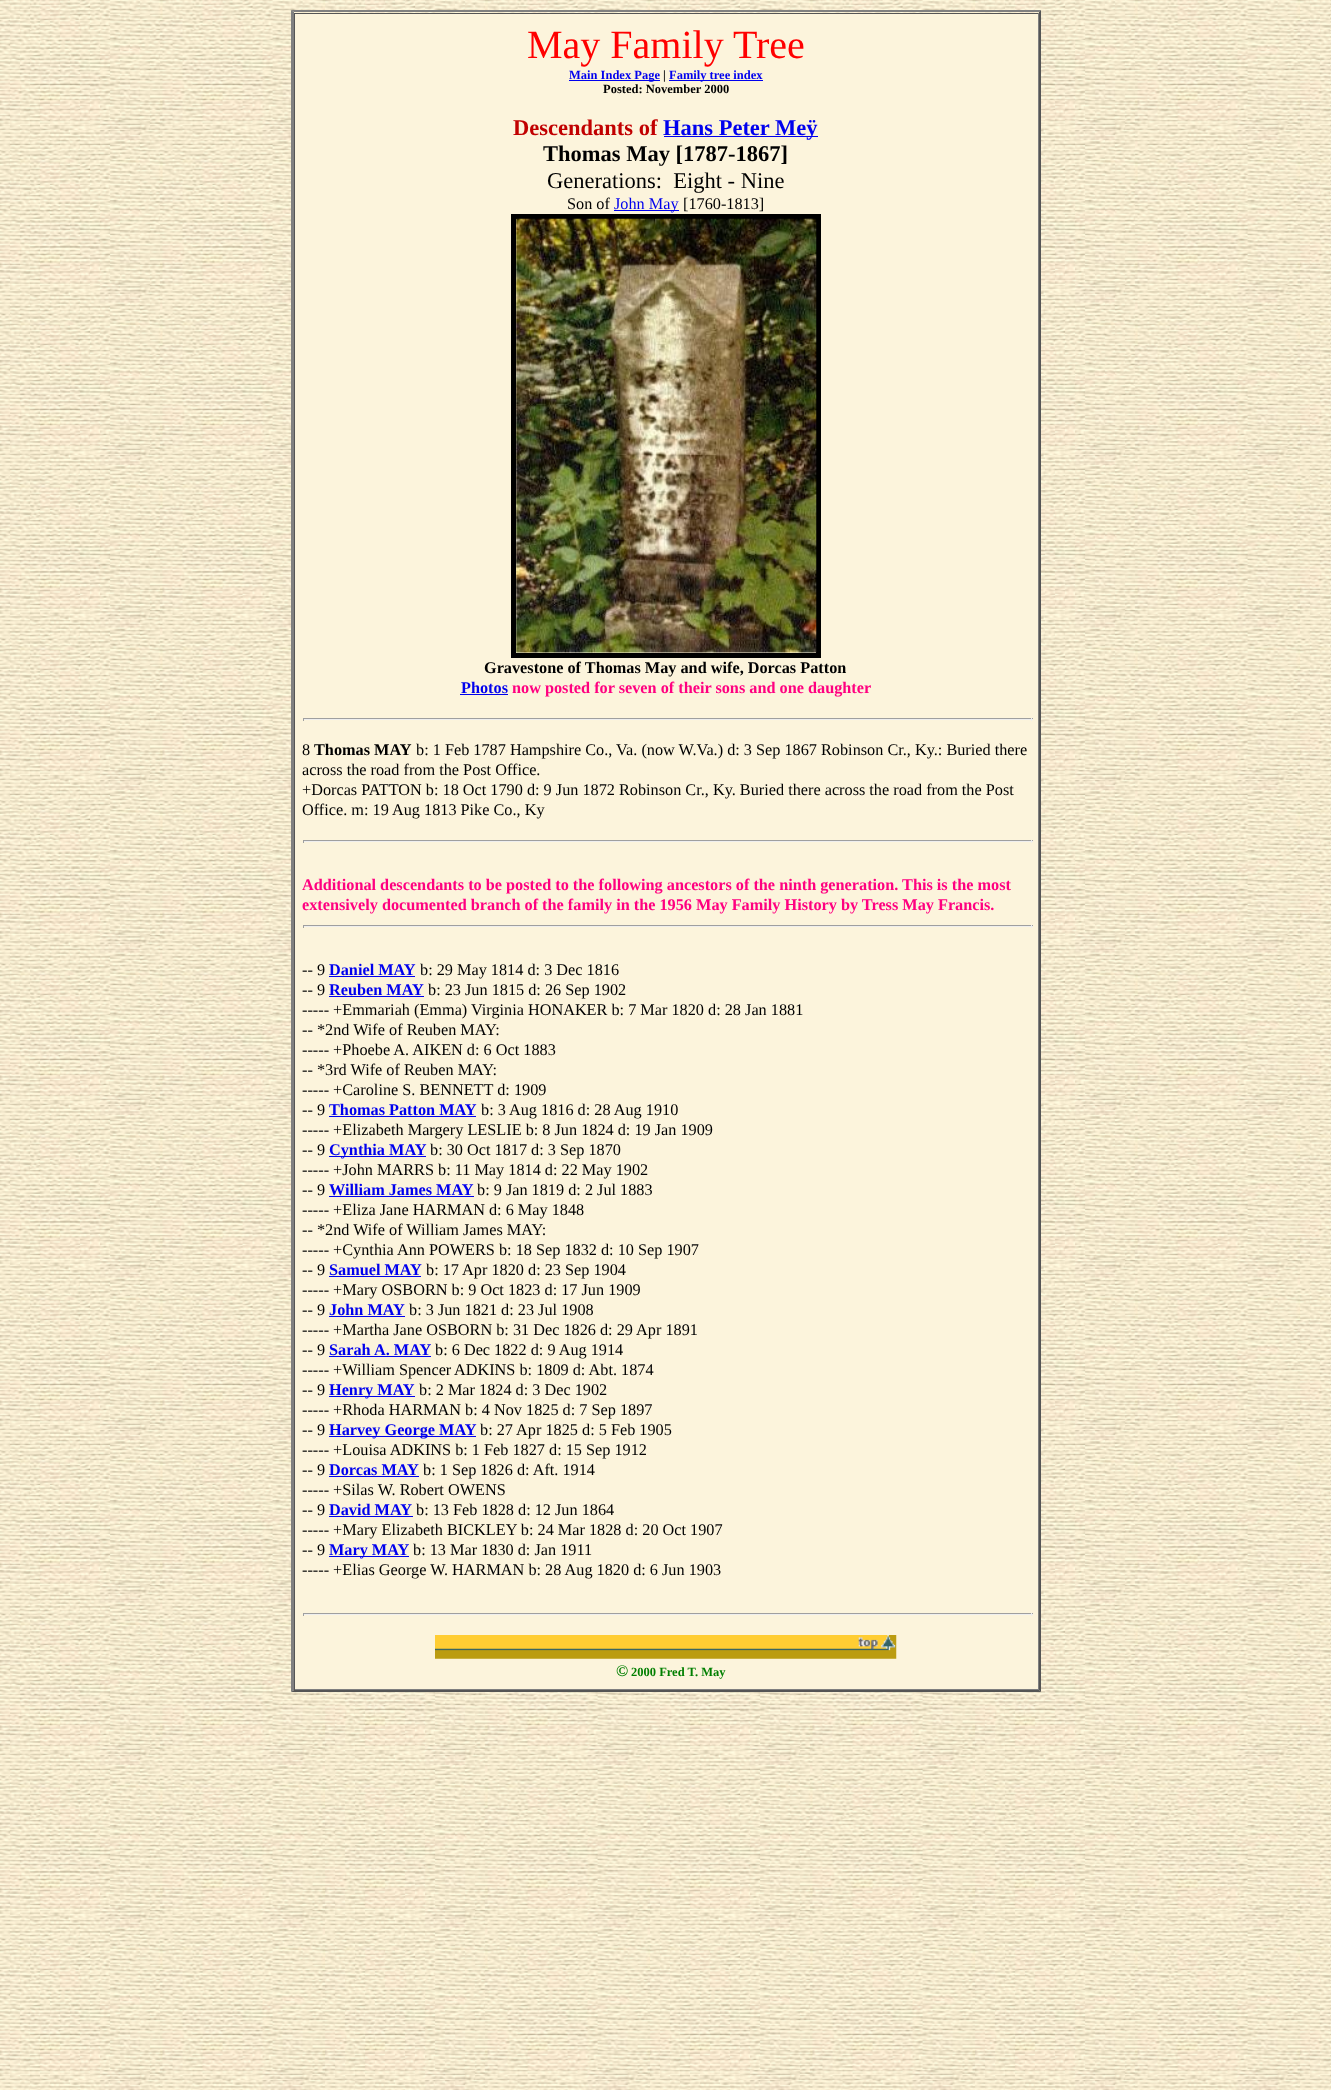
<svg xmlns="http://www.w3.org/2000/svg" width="1331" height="2090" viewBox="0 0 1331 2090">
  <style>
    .t1 { font: 40px Liberation Serif; fill: #f00; }
    .t2 { font: bold 12.5px Liberation Serif; fill: #00e; }
    .t3 { font: bold 12.5px Liberation Serif; fill: #000; }
    .t4 { font: bold 22.5px Liberation Serif; fill: #c10000; }
    .t5 { font: bold 22.5px Liberation Serif; fill: #00e; }
    .t6 { font: bold 22.5px Liberation Serif; fill: #000; }
    .t7 { font: 22.5px Liberation Serif; fill: #000; }
    .t8 { font: 16.25px Liberation Serif; fill: #000; }
    .t9 { font: 16.25px Liberation Serif; fill: #00e; }
    .t10 { font: bold 16.25px Liberation Serif; fill: #000; }
    .t11 { font: bold 16.25px Liberation Serif; fill: #00e; }
    .t12 { font: bold 16.25px Liberation Serif; fill: #ff0080; }
    .t13 { font: bold 16.25px Liberation Serif; fill: #007f00; }
    .t14 { font: bold 12.5px Liberation Serif; fill: #007f00; }
  </style>
  <rect width="100%" height="100%" fill="#fff"/>
  <image x="0" y="0" width="1331" height="2090" href="images/1.png"/>
  <path d="M291 10H1041L1039 12H294Z" fill="#808080"/>
  <path d="M1041 10V1692L1039 1690V12Z" fill="#555"/>
  <path d="M1041 1692H291L294 1690H1039Z" fill="#555"/>
  <path d="M291 1692V10L294 12V1690Z" fill="#808080"/>
  <rect x="295" y="14" width="743" height="1675" fill="#fcf4dc"/>
  <rect x="294" y="13" width="745" height="1" fill="#555"/>
  <rect x="1038" y="13" width="1" height="1677" fill="#808080"/>
  <rect x="294" y="1689" width="745" height="1" fill="#808080"/>
  <rect x="294" y="13" width="1" height="1677" fill="#555"/>
  <text x="527" y="58" class="t1">May Family Tree</text>
  <rect x="569" y="80" width="91" height="1" fill="#00e"/>
  <text x="569" y="79" class="t2">Main Index Page</text>
  <text x="663" y="79" class="t3">|</text>
  <rect x="669" y="80" width="94" height="1" fill="#00e"/>
  <text x="669" y="79" class="t2">Family tree index</text>
  <text x="603" y="93" class="t3">Posted: November 2000</text>
  <text x="513" y="135" class="t4">Descendants of</text>
  <rect x="664" y="136" width="154" height="1" fill="#00e"/>
  <text x="663" y="135" class="t5">Hans Peter Meÿ</text>
  <text x="543" y="161" class="t6">Thomas May [1787-1867]</text>
  <text x="547" y="188" class="t7" xml:space="preserve">Generations:  Eight - Nine</text>
  <text x="567" y="209" class="t8">Son of</text>
  <rect x="614" y="210" width="65" height="1" fill="#00e"/>
  <text x="614" y="209" class="t9">John May</text>
  <text x="683" y="209" class="t8">[1760-1813]</text>
  <rect x="513.5" y="216.5" width="305" height="439" fill="none" stroke="#000" stroke-width="5"/>
  <image x="516" y="218" width="301" height="435" href="images/2.png"/>
  <text x="484" y="673" class="t10">Gravestone of Thomas May and wife, Dorcas Patton</text>
  <text x="461" y="693" class="t11">Photos</text>
  <rect x="460" y="694" width="48" height="1" fill="#00e"/>
  <text x="512" y="693" class="t12">now posted for seven of their sons and one daughter</text>
  <rect x="303" y="718" width="730" height="1" fill="#9f9f9f"/>
  <rect x="1031" y="718" width="1" height="3" fill="#eee"/>
  <rect x="303" y="719" width="730" height="1" fill="#eee"/>
  <rect x="303" y="718" width="1" height="3" fill="#9f9f9f"/>
  <text x="302" y="755" class="t8">8</text>
  <text x="314" y="755" class="t10">Thomas MAY</text>
  <text x="416" y="755" class="t8">b: 1 Feb 1787 Hampshire Co., Va. (now W.Va.) d: 3 Sep 1867 Robinson Cr., Ky.: Buried there</text>
  <text x="302" y="775" class="t8">across the road from the Post Office.</text>
  <text x="302" y="795" class="t8">+Dorcas PATTON b: 18 Oct 1790 d: 9 Jun 1872 Robinson Cr., Ky. Buried there across the road from the Post</text>
  <text x="302" y="815" class="t8">Office. m: 19 Aug 1813 Pike Co., Ky</text>
  <rect x="303" y="840" width="730" height="1" fill="#9f9f9f"/>
  <rect x="1031" y="840" width="1" height="3" fill="#eee"/>
  <rect x="303" y="841" width="730" height="1" fill="#eee"/>
  <rect x="303" y="840" width="1" height="3" fill="#9f9f9f"/>
  <text x="302" y="890" class="t12">Additional descendants to be posted to the following ancestors of the ninth generation. This is the most</text>
  <text x="302" y="910" class="t12">extensively documented branch of the family in the 1956 May Family History by Tress May Francis.</text>
  <rect x="303" y="925" width="730" height="1" fill="#9f9f9f"/>
  <rect x="1031" y="925" width="1" height="3" fill="#eee"/>
  <rect x="303" y="926" width="730" height="1" fill="#eee"/>
  <rect x="303" y="925" width="1" height="3" fill="#9f9f9f"/>
  <text x="302" y="975" class="t8">-- 9</text>
  <text x="329" y="975" class="t11">Daniel MAY</text>
  <rect x="329" y="976" width="86" height="1" fill="#00e"/>
  <text x="420" y="975" class="t8">b: 29 May 1814 d: 3 Dec 1816</text>
  <text x="302" y="995" class="t8">-- 9</text>
  <text x="329" y="995" class="t11">Reuben MAY</text>
  <rect x="329" y="996" width="95" height="1" fill="#00e"/>
  <text x="428" y="995" class="t8">b: 23 Jun 1815 d: 26 Sep 1902</text>
  <text x="302" y="1015" class="t8">----- +Emmariah (Emma)</text>
  <text x="471" y="1015" class="t8">Virginia HONAKER b: 7 Mar 1820 d: 28 Jan 1881</text>
  <text x="302" y="1035" class="t8">-- *2nd Wife of Reuben MAY:</text>
  <text x="302" y="1055" class="t8">----- +Phoebe A. AIKEN d: 6 Oct 1883</text>
  <text x="302" y="1075" class="t8">-- *3rd Wife of Reuben MAY:</text>
  <text x="302" y="1095" class="t8">----- +Caroline S. BENNETT d: 1909</text>
  <text x="302" y="1115" class="t8">-- 9</text>
  <text x="329" y="1115" class="t11">Thomas Patton MAY</text>
  <rect x="329" y="1116" width="147" height="1" fill="#00e"/>
  <text x="481" y="1115" class="t8">b: 3 Aug 1816 d: 28 Aug 1910</text>
  <text x="302" y="1135" class="t8">----- +Elizabeth Margery LESLIE b: 8 Jun 1824 d: 19 Jan 1909</text>
  <text x="302" y="1155" class="t8">-- 9</text>
  <rect x="329" y="1156" width="97" height="1" fill="#00e"/>
  <text x="329" y="1155" class="t11">Cynthia MAY</text>
  <text x="430" y="1155" class="t8">b: 30 Oct 1817 d: 3 Sep 1870</text>
  <text x="302" y="1175" class="t8">----- +John MARRS b: 11 May 1814 d: 22 May 1902</text>
  <text x="302" y="1195" class="t8">-- 9</text>
  <text x="329" y="1195" class="t11">William James MAY</text>
  <rect x="329" y="1196" width="145" height="1" fill="#00e"/>
  <text x="477" y="1195" class="t8">b: 9 Jan 1819 d: 2 Jul 1883</text>
  <text x="302" y="1215" class="t8">----- +Eliza Jane HARMAN d: 6 May 1848</text>
  <text x="302" y="1235" class="t8">-- *2nd Wife of William James MAY:</text>
  <text x="302" y="1255" class="t8">----- +Cynthia Ann POWERS b: 18 Sep 1832 d: 10 Sep 1907</text>
  <text x="302" y="1275" class="t8">-- 9</text>
  <text x="329" y="1275" class="t11">Samuel MAY</text>
  <rect x="329" y="1276" width="92" height="1" fill="#00e"/>
  <text x="426" y="1275" class="t8">b: 17 Apr 1820 d: 23 Sep 1904</text>
  <text x="302" y="1295" class="t8">----- +Mary OSBORN b: 9 Oct 1823 d: 17 Jun 1909</text>
  <text x="302" y="1315" class="t8">-- 9</text>
  <text x="329" y="1315" class="t11">John MAY</text>
  <rect x="329" y="1316" width="76" height="1" fill="#00e"/>
  <text x="409" y="1315" class="t8">b: 3 Jun 1821 d: 23 Jul 1908</text>
  <text x="302" y="1335" class="t8">----- +Martha Jane OSBORN b: 31 Dec 1826 d: 29 Apr 1891</text>
  <text x="302" y="1355" class="t8">-- 9</text>
  <text x="329" y="1355" class="t11">Sarah</text>
  <text x="374" y="1355" class="t11">A. MAY</text>
  <rect x="329" y="1356" width="102" height="1" fill="#00e"/>
  <text x="435" y="1355" class="t8">b: 6 Dec 1822 d: 9 Aug 1914</text>
  <text x="302" y="1375" class="t8">----- +William Spencer</text>
  <text x="454" y="1375" class="t8">ADKINS b: 1809 d: Abt. 1874</text>
  <text x="302" y="1395" class="t8">-- 9</text>
  <rect x="329" y="1396" width="86" height="1" fill="#00e"/>
  <text x="329" y="1395" class="t11">Henry MAY</text>
  <text x="419" y="1395" class="t8">b: 2 Mar 1824 d: 3 Dec 1902</text>
  <text x="302" y="1415" class="t8">----- +Rhoda HARMAN b: 4 Nov 1825 d: 7 Sep 1897</text>
  <text x="302" y="1435" class="t8">-- 9</text>
  <rect x="329" y="1436" width="147" height="1" fill="#00e"/>
  <text x="329" y="1435" class="t11">Harvey George MAY</text>
  <text x="480" y="1435" class="t8">b: 27 Apr 1825 d: 5 Feb 1905</text>
  <text x="302" y="1455" class="t8">----- +Louisa ADKINS b: 1 Feb 1827 d: 15 Sep 1912</text>
  <text x="302" y="1475" class="t8">-- 9</text>
  <text x="329" y="1475" class="t11">Dorcas MAY</text>
  <rect x="329" y="1476" width="90" height="1" fill="#00e"/>
  <text x="423" y="1475" class="t8">b: 1 Sep 1826 d: Aft. 1914</text>
  <text x="302" y="1495" class="t8">----- +Silas W. Robert OWENS</text>
  <text x="302" y="1515" class="t8">-- 9</text>
  <text x="329" y="1515" class="t11">David MAY</text>
  <rect x="329" y="1516" width="84" height="1" fill="#00e"/>
  <text x="416" y="1515" class="t8">b: 13 Feb 1828 d: 12 Jun 1864</text>
  <text x="302" y="1535" class="t8">----- +Mary Elizabeth BICKLEY b: 24 Mar 1828 d: 20 Oct 1907</text>
  <text x="302" y="1555" class="t8">-- 9</text>
  <rect x="329" y="1556" width="80" height="1" fill="#00e"/>
  <text x="329" y="1555" class="t11">Mary MAY</text>
  <text x="413" y="1555" class="t8">b: 13 Mar 1830 d: Jan 1911</text>
  <text x="302" y="1575" class="t8">----- +Elias George W. HARMAN b: 28 Aug 1820 d: 6 Jun 1903</text>
  <rect x="303" y="1613" width="730" height="1" fill="#9f9f9f"/>
  <rect x="1031" y="1613" width="1" height="3" fill="#eee"/>
  <rect x="303" y="1614" width="730" height="1" fill="#eee"/>
  <rect x="303" y="1613" width="1" height="3" fill="#9f9f9f"/>
  <image x="435" y="1635" width="462" height="24" href="images/3.png"/>
  <text x="616" y="1676" class="t13">©</text>
  <text x="631" y="1676" class="t14">2000 Fred T. May</text>
</svg>
